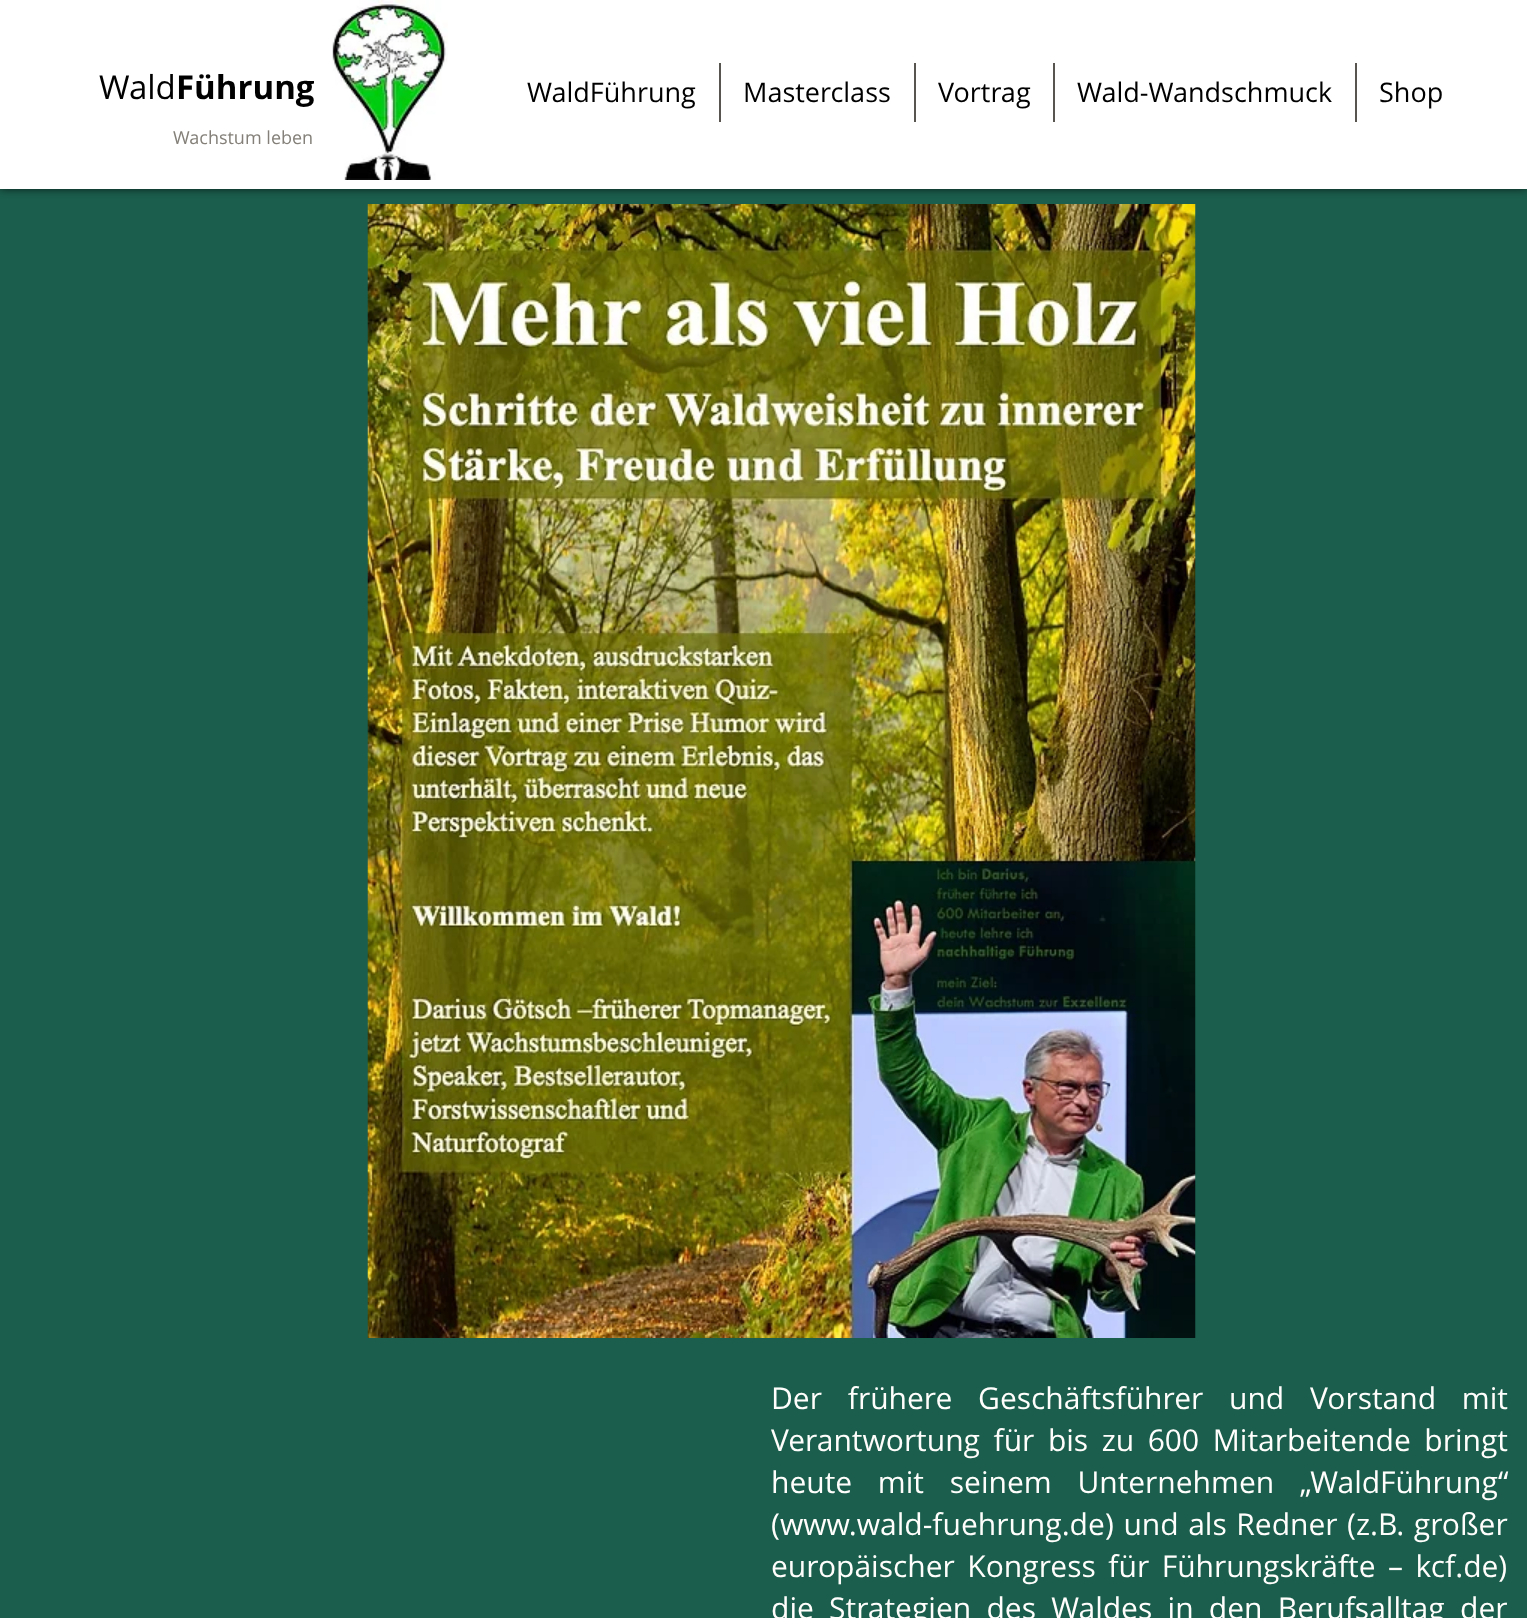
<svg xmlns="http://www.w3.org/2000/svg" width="1527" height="1618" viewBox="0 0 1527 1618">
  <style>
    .t1 { font: 33px Open Sans; fill: #000; }
    .t2 { font: bold 33px Open Sans; fill: #000; }
    .t3 { font: 18px Open Sans; fill: #848079; }
    .t4 { font: 27px Open Sans; fill: #000; }
    .t5 { font: 30px Open Sans; fill: #fffefc; }
  </style>
  <rect width="100%" height="100%" fill="#1b5e4d"/>
  <rect x="0" y="0" width="1527" height="189" fill="#000000b3" filter="blur(4px)"/>
  <rect x="0" y="0" width="1527" height="189" fill="#fff"/>
  <text x="99" y="99" class="t1">Wald</text>
  <text x="176" y="99" class="t2">Führung</text>
  <text x="173" y="144" class="t3">Wachstum leben</text>
  <image x="332" y="0" width="116" height="180" href="images/1.png"/>
  <text x="527" y="102" class="t4">WaldFührung</text>
  <rect x="719" y="63" width="2" height="59" fill="#585551"/>
  <text x="743" y="102" class="t4">Masterclass</text>
  <rect x="914" y="63" width="2" height="59" fill="#585551"/>
  <text x="938" y="102" class="t4">Vortrag</text>
  <rect x="1053" y="63" width="2" height="59" fill="#585551"/>
  <text x="1077" y="102" class="t4">Wald-Wandschmuck</text>
  <rect x="1355" y="63" width="2" height="59" fill="#585551"/>
  <text x="1379" y="102" class="t4">Shop</text>
  <image x="367" y="204" width="829" height="1134" href="images/2.png"/>
  <text x="771" y="1409" word-spacing="18" class="t5">Der frühere Geschäftsführer und Vorstand mit</text>
  <text x="771" y="1451" word-spacing="5.75" class="t5">Verantwortung für bis zu 600 Mitarbeitende bringt</text>
  <text x="771" y="1493" word-spacing="18" class="t5">heute mit seinem Unternehmen „WaldFührung“</text>
  <text x="771" y="1535" class="t5">(www.wald-fuehrung.de</text>
  <text x="1105" y="1535" word-spacing="1.75" class="t5">) und als Redner (z.B. großer</text>
  <text x="771" y="1577" word-spacing="4.75" class="t5">europäischer Kongress für Führungskräfte – kcf.de)</text>
  <text x="771" y="1619" word-spacing="7.5" class="t5">die Strategien des Waldes in den Berufsalltag der</text>
</svg>
